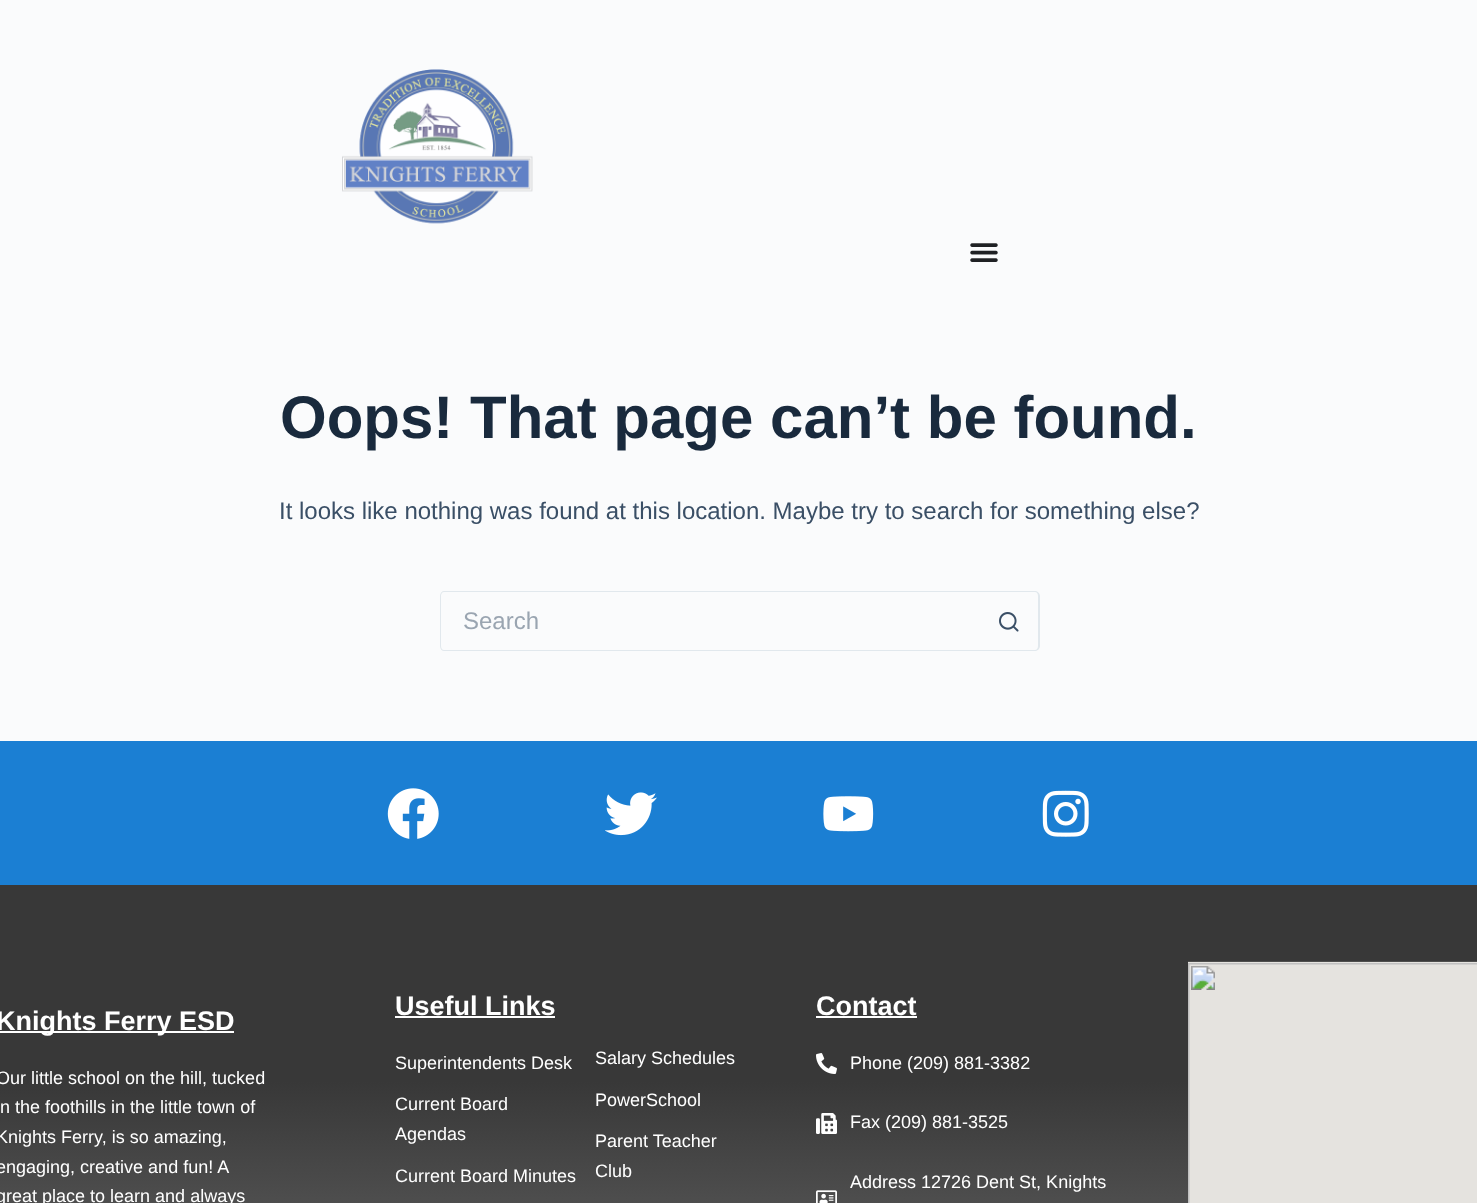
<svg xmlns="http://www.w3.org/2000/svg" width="1477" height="1203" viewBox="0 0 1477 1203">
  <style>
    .t1 { font: bold 60px Liberation Sans; fill: #192a3d; }
    .t2 { font: 24px Liberation Sans; fill: #3a4f66; }
    .t3 { font: 24px Liberation Sans; fill: #9aa5b1; }
    .t4 { font: bold 27px Liberation Sans; fill: #fff; }
    .t5 { font: 18px Liberation Sans; fill: #fff; }
  </style>
  <defs>
    <linearGradient id="g1" gradientUnits="userSpaceOnUse" x1="739" y1="885" x2="739" y2="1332"><stop offset="0.44" stop-color="#383838"/><stop offset="0.99" stop-color="#646464"/></linearGradient>
  </defs>
  <rect width="100%" height="100%" fill="#fafbfc"/>
  <image x="342" y="69" width="191" height="155" href="images/1.png"/>
  <image x="970" y="243" width="28" height="19" href="images/2.png"/>
  <text x="280" y="438" class="t1">Oops! That page can’t be found.</text>
  <text x="279" y="519" class="t2">It looks like nothing was found at this location. Maybe try to search for something else?</text>
  <path d="M444 591H980V651H444C442 651 440 649 440 646V596C440 593 442 591 444 591ZM444 592H980V650H444C442 650 441 648 441 646V596C441 594 442 592 444 592Z" fill="#e1e8ed" fill-rule="evenodd"/>
  <text x="463" y="629" class="t3">Search</text>
  <path d="M980 591H1035C1037 591 1040 593 1040 596V646C1040 649 1037 651 1035 651H980ZM980 592H1035C1037 592 1038 594 1038 596V646C1038 648 1037 650 1035 650H980Z" fill="#e1e8ed" fill-rule="evenodd"/>
  <image x="999" y="612" width="20" height="20" href="images/3.png"/>
  <rect x="0" y="741" width="1477" height="144" fill="#1b7fd3"/>
  <image x="387" y="788" width="52" height="51" href="images/4.png"/>
  <image x="605" y="792" width="52" height="44" href="images/5.png"/>
  <image x="823" y="796" width="51" height="36" href="images/6.png"/>
  <image x="1042" y="790" width="47" height="47" href="images/7.png"/>
  <rect x="0" y="885" width="1477" height="318" fill="url(#g1)"/>
  <rect x="0" y="1031" width="234" height="2" fill="#fff"/>
  <text x="-4" y="1030" class="t4">Knights Ferry ESD</text>
  <text x="-4" y="1084" class="t5">Our little school on the hill, tucked</text>
  <text x="0" y="1113" class="t5">n the foothills in the little town of</text>
  <text x="-4" y="1143" class="t5">Knights Ferry, is so amazing,</text>
  <text x="-4" y="1173" class="t5">engaging, creative and fun! A</text>
  <text x="-4" y="1202" class="t5">great place to learn and always</text>
  <text x="395" y="1015" class="t4">Useful Links</text>
  <rect x="395" y="1016" width="160" height="2" fill="#fff"/>
  <text x="395" y="1069" class="t5">Superintendents Desk</text>
  <text x="395" y="1110" class="t5">Current Board</text>
  <text x="395" y="1140" class="t5">Agendas</text>
  <text x="395" y="1182" class="t5">Current Board Minutes</text>
  <text x="595" y="1064" class="t5">Salary Schedules</text>
  <text x="595" y="1106" class="t5">PowerSchool</text>
  <text x="595" y="1147" class="t5">Parent Teacher</text>
  <text x="595" y="1177" class="t5">Club</text>
  <text x="816" y="1015" class="t4">Contact</text>
  <rect x="816" y="1016" width="101" height="2" fill="#fff"/>
  <image x="816" y="1053" width="21" height="21" href="images/8.png"/>
  <text x="850" y="1069" class="t5">Phone (209) 881-3382</text>
  <image x="816" y="1113" width="21" height="21" href="images/9.png"/>
  <text x="850" y="1128" class="t5">Fax (209) 881-3525</text>
  <text x="850" y="1188" class="t5">Address 12726 Dent St, Knights</text>
  <image x="816" y="1190" width="21" height="13" href="images/10.png"/>
  <image x="1188" y="961" width="289" height="242" href="images/11.png"/>
</svg>
